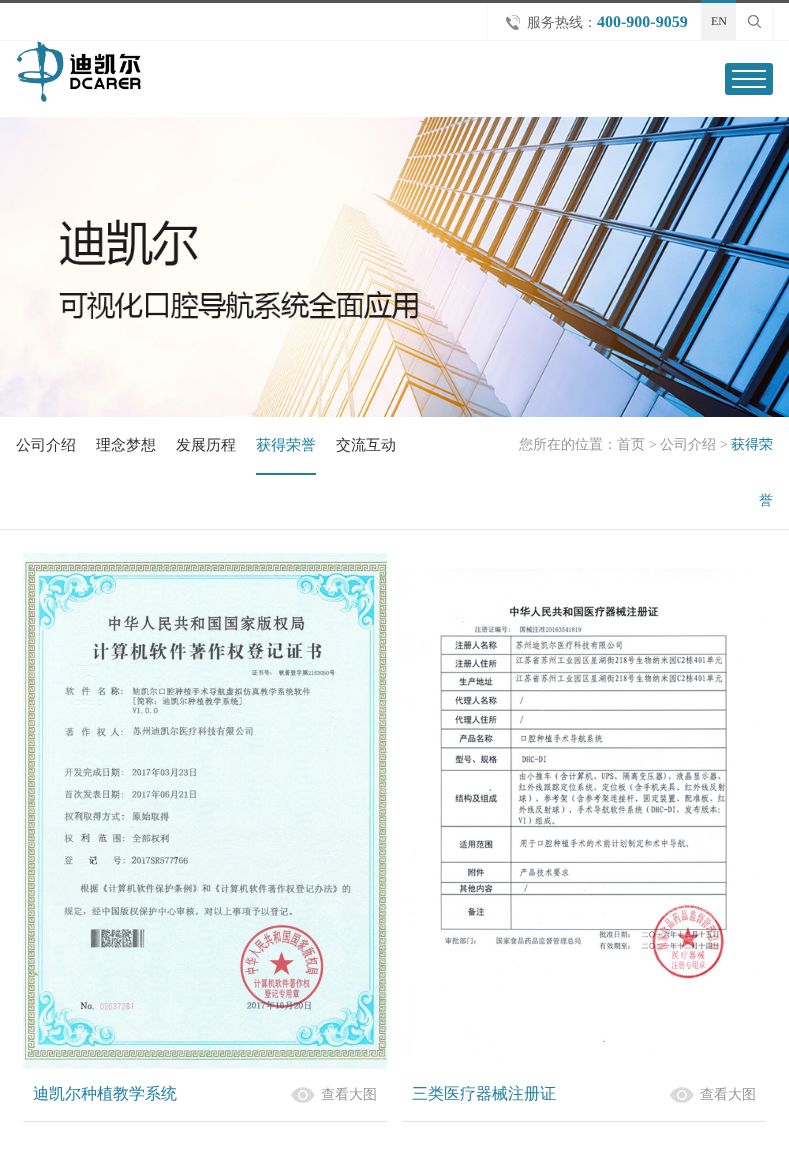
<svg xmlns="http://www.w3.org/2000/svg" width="789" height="1153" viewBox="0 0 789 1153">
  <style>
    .t1 { font: 500 14px WenQuanYi Zen Hei; fill: #666; }
    .t2 { font: bold 16px Liberation Serif; fill: #1e7fa2; }
    .t3 { font: 12px Liberation Serif; fill: #333; }
    .t4 { font: 500 15px WenQuanYi Zen Hei; fill: #333; }
    .t5 { font: 500 15px WenQuanYi Zen Hei; fill: #1e7fa2; }
    .t6 { font: 500 14px WenQuanYi Zen Hei; fill: #999; }
    .t7 { font: 14px Liberation Serif; fill: #999; }
    .t8 { font: 500 14px WenQuanYi Zen Hei; fill: #1e7fa2; }
    .t9 { font: 500 16px WenQuanYi Zen Hei; fill: #1e7fa2; }
  </style>
  <rect width="100%" height="100%" fill="#fff"/>
  <rect x="0" y="0" width="789" height="3" fill="#565656"/>
  <image x="506" y="15" width="14" height="15" href="images/1.png"/>
  <rect x="0" y="40" width="789" height="1" fill="#f7f7f7"/>
  <rect x="487" y="3" width="1" height="38" fill="#f7f7f7"/>
  <text x="527" y="27" class="t1">服务热线：</text>
  <text x="597" y="27" class="t2">400-900-9059</text>
  <rect x="701" y="0" width="35" height="3" fill="#1e7fa2"/>
  <rect x="701" y="3" width="35" height="37" fill="#f2f2f2"/>
  <text x="711" y="25" class="t3">EN</text>
  <image x="748" y="15" width="13" height="13" href="images/2.png"/>
  <rect x="772" y="3" width="1" height="37" fill="#f7f7f7"/>
  <image x="16" y="41" width="125" height="61" href="images/3.png"/>
  <rect x="725" y="63" width="48" height="32" rx="3" fill="#1e7fa2"/>
  <rect x="732" y="78" width="34" height="2" fill="#fff"/>
  <rect x="732" y="70" width="34" height="2" fill="#fff"/>
  <rect x="732" y="86" width="34" height="2" fill="#fff"/>
  <image x="0" y="117" width="789" height="300" href="images/4.png"/>
  <rect x="0" y="529" width="789" height="1" fill="#e8e8e8"/>
  <text x="16" y="450" class="t4">公司介绍</text>
  <text x="96" y="450" class="t4">理念梦想</text>
  <text x="176" y="450" class="t4">发展历程</text>
  <text x="256" y="450" class="t5">获得荣誉</text>
  <rect x="256" y="473" width="60" height="2" fill="#1e7fa2"/>
  <text x="336" y="450" class="t4">交流互动</text>
  <text x="519" y="449" class="t6">您所在的位置：首页</text>
  <text x="649" y="449" class="t7">&gt;</text>
  <text x="660" y="449" class="t6">公司介绍</text>
  <text x="720" y="449" class="t7">&gt;</text>
  <text x="731" y="449" class="t8">获得荣</text>
  <text x="759" y="505" class="t8">誉</text>
  <rect x="23" y="1121" width="364" height="1" fill="#e3e3e3"/>
  <image x="23" y="553" width="364" height="516" href="images/5.png"/>
  <text x="33" y="1099" class="t9">迪凯尔种植教学系统</text>
  <image x="291" y="1087" width="24" height="16" href="images/6.png"/>
  <text x="321" y="1099" class="t6">查看大图</text>
  <rect x="402" y="1121" width="364" height="1" fill="#e3e3e3"/>
  <image x="407" y="568" width="354" height="490" href="images/7.png"/>
  <text x="412" y="1099" class="t9">三类医疗器械注册证</text>
  <image x="670" y="1087" width="24" height="16" href="images/6.png"/>
  <text x="700" y="1099" class="t6">查看大图</text>
</svg>
